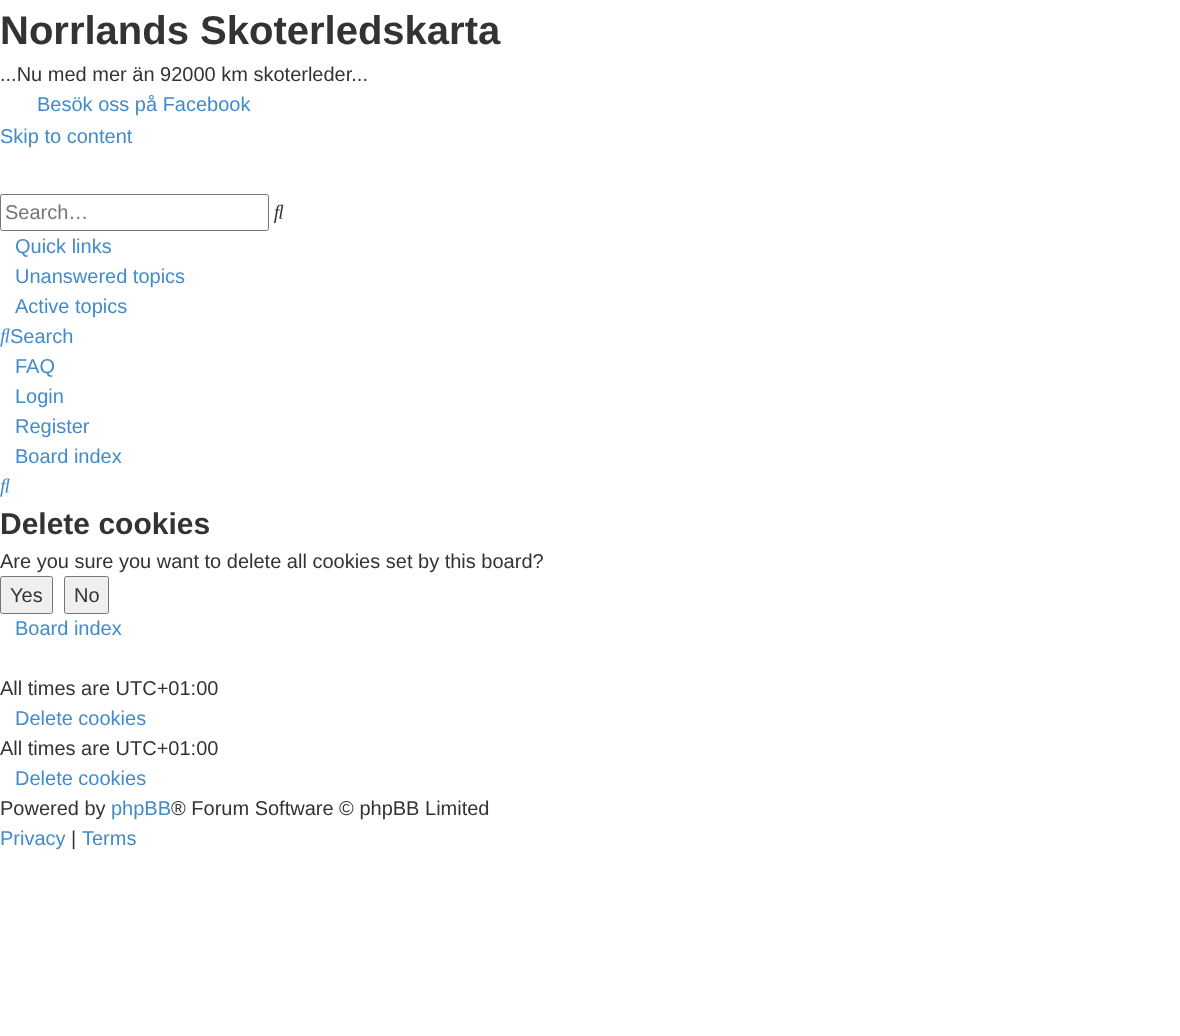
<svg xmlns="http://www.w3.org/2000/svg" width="1180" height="1036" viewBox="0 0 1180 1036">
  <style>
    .t1 { font: bold 40px Liberation Sans; fill: #333; }
    .t2 { font: 20px Liberation Sans; fill: #333; }
    .t3 { font: 20px Liberation Sans; fill: #428bca; }
    .t4 { font: 20px Liberation Sans; fill: #757575; }
    .t5 { font: bold 30px Liberation Sans; fill: #333; }
  </style>
  <rect width="100%" height="100%" fill="#fff"/>
  <text x="0" y="44" class="t1">Norrlands Skoterledskarta</text>
  <text x="0" y="81" class="t2">...Nu med mer än 92000 km skoterleder...</text>
  <text x="37" y="111" class="t3">Besök oss på Facebook</text>
  <text x="0" y="143" class="t3">Skip to content</text>
  <rect x="0.5" y="194.5" width="268" height="36" rx="2" fill="none" stroke="#767676"/>
  <text x="5" y="219" class="t4">Search…</text>
  <image x="274" y="204" width="10" height="19" href="images/1.png"/>
  <text x="15" y="253" class="t3">Quick links</text>
  <text x="15" y="283" class="t3">Unanswered topics</text>
  <text x="15" y="313" class="t3">Active topics</text>
  <image x="0" y="328" width="10" height="19" href="images/2.png"/>
  <text x="10" y="343" class="t3">Search</text>
  <text x="15" y="373" class="t3">FAQ</text>
  <text x="15" y="403" class="t3">Login</text>
  <text x="15" y="433" class="t3">Register</text>
  <text x="15" y="463" class="t3">Board index</text>
  <image x="0" y="478" width="10" height="19" href="images/2.png"/>
  <text x="0" y="534" class="t5">Delete cookies</text>
  <text x="0" y="568" class="t2">Are you sure you want to delete all cookies set by this board?</text>
  <rect x="0.5" y="576.5" width="52" height="37" rx="2" fill="#efefef" stroke="#767676"/>
  <text x="10" y="602" class="t2">Yes</text>
  <rect x="64.5" y="576.5" width="44" height="37" rx="2" fill="#efefef" stroke="#767676"/>
  <text x="74" y="602" class="t2">No</text>
  <text x="15" y="635" class="t3">Board index</text>
  <text x="0" y="695" class="t2">All times are UTC+01:00</text>
  <text x="15" y="725" class="t3">Delete cookies</text>
  <text x="0" y="755" class="t2">All times are UTC+01:00</text>
  <text x="15" y="785" class="t3">Delete cookies</text>
  <text x="0" y="815" class="t2">Powered by</text>
  <text x="111" y="815" class="t3">phpBB</text>
  <text x="171" y="815" class="t2">® Forum Software © phpBB Limited</text>
  <text x="0" y="845" class="t3">Privacy</text>
  <text x="71" y="845" class="t2">|</text>
  <text x="82" y="845" class="t3">Terms</text>
</svg>
